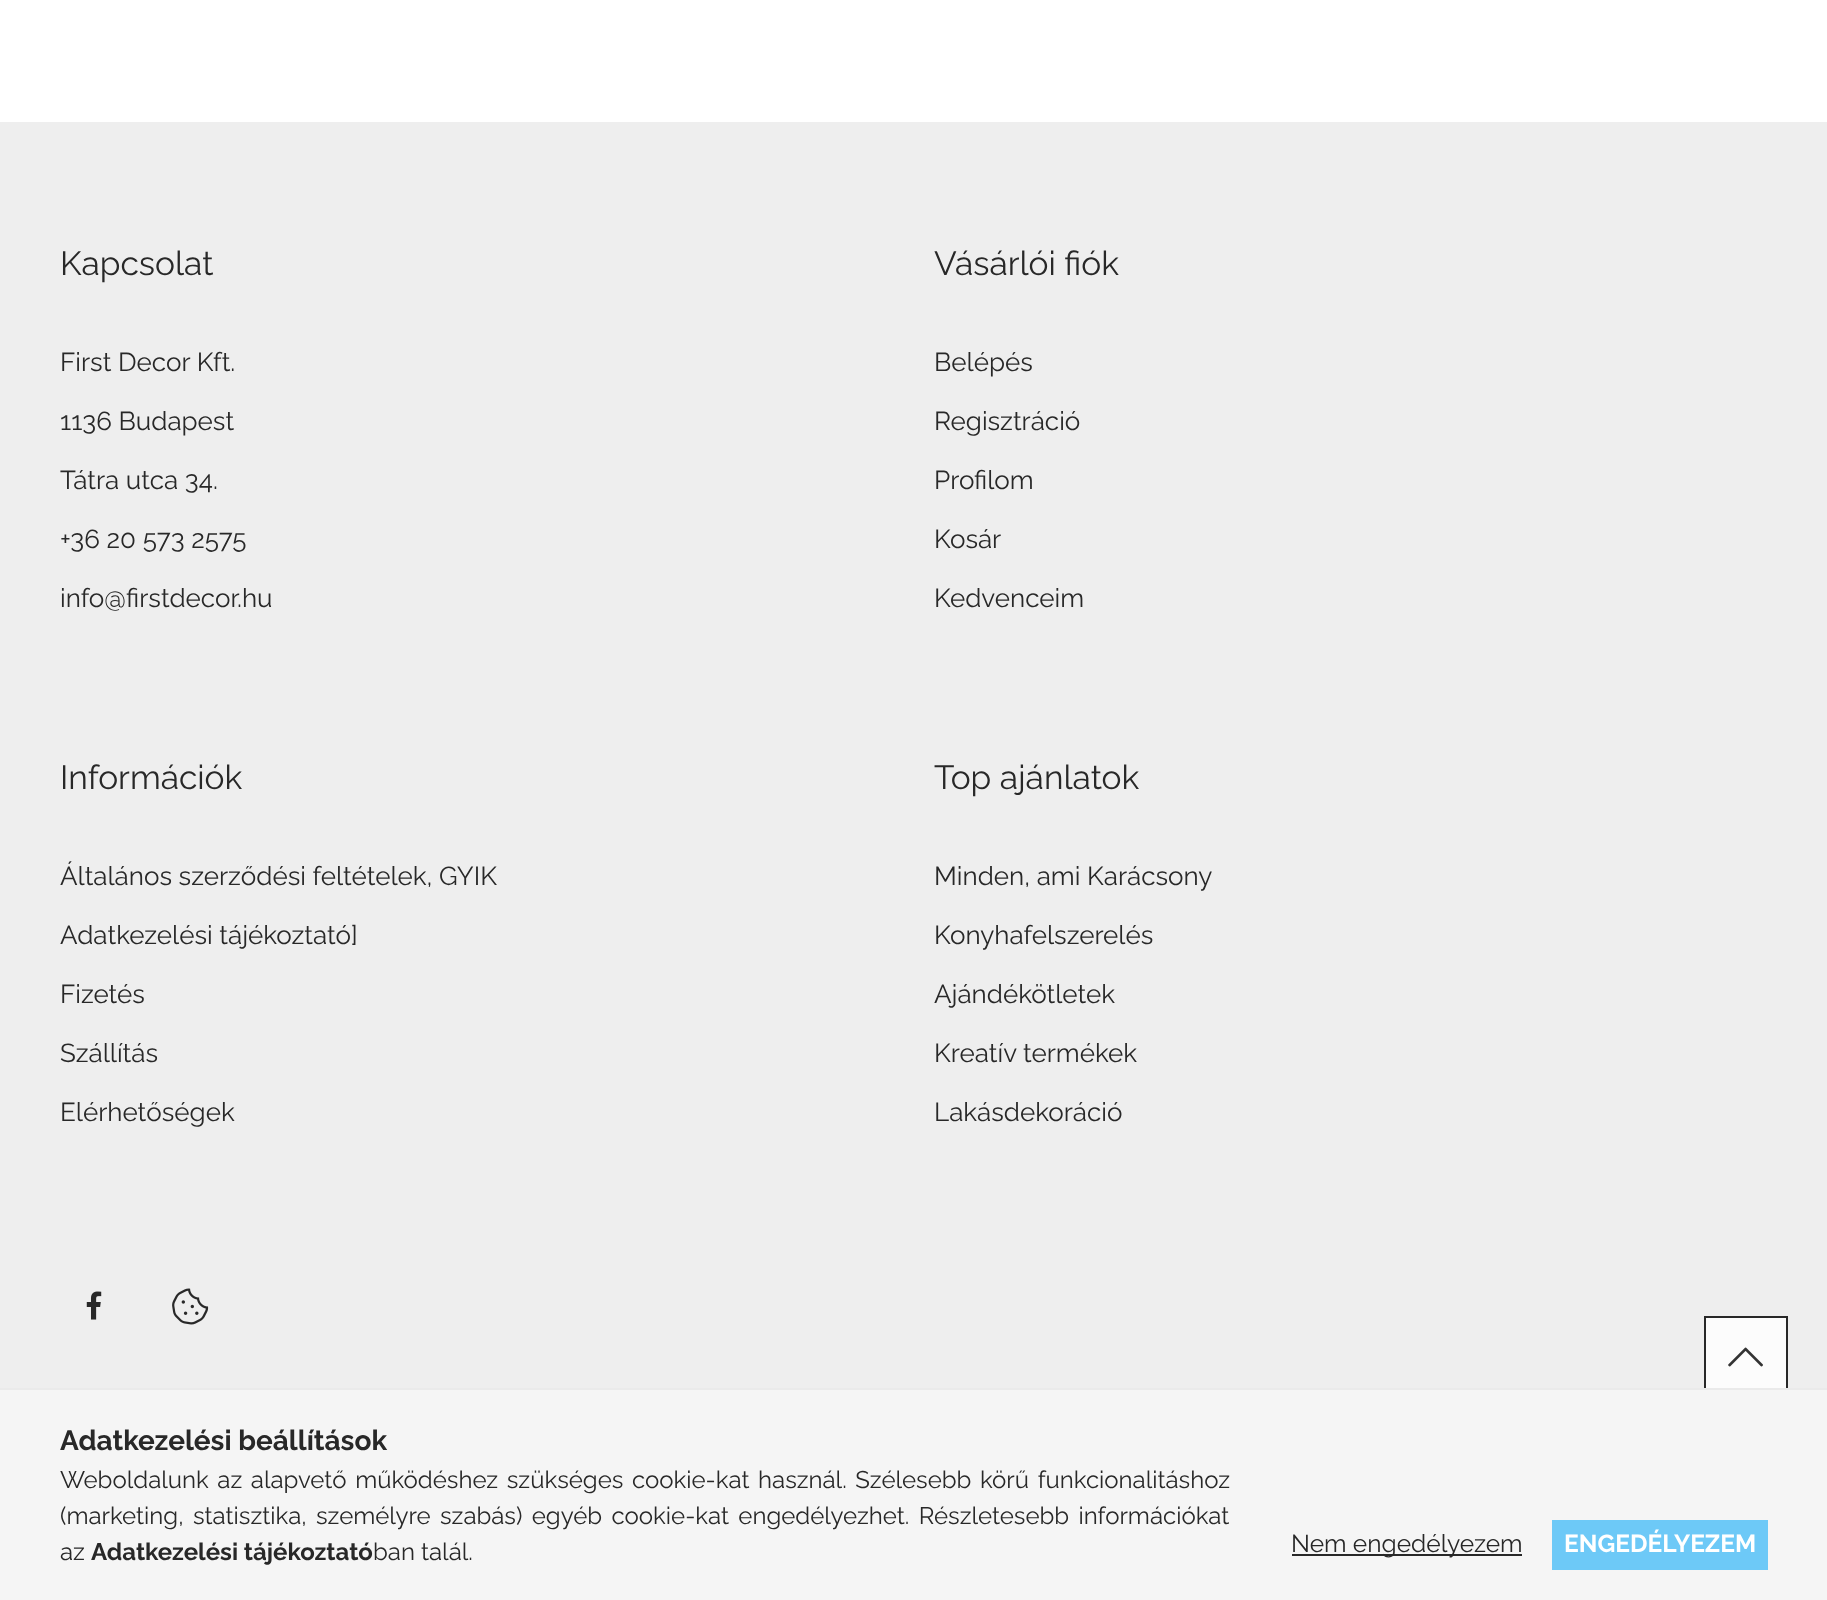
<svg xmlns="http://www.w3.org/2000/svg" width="1827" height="1600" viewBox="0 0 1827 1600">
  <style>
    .t1 { font: 33.5px Raleway; fill: #282828; }
    .t2 { font: 26px Raleway; fill: #282828; }
    .t3 { font: bold 28px Raleway; fill: #282828; }
    .t4 { font: 24px Raleway; fill: #282828; }
    .t5 { font: bold 24px Raleway; fill: #282828; }
    .t6 { font: 24.5px Raleway; fill: #282828; }
    .t7 { font: bold 24.5px Raleway; fill: #fff; }
  </style>
  <rect width="100%" height="100%" fill="#fff"/>
  <rect x="0" y="122" width="1827" height="1266" fill="#eee"/>
  <text x="60" y="275" class="t1">Kapcsolat</text>
  <text x="60" y="371" class="t2">First Decor Kft.</text>
  <text x="60" y="430" class="t2">1136 Budapest</text>
  <text x="60" y="489" class="t2">Tátra utca 34.</text>
  <text x="60" y="548" class="t2">+36 20 573 2575</text>
  <text x="60" y="607" class="t2">info@firstdecor.hu</text>
  <text x="934" y="275" class="t1">Vásárlói fiók</text>
  <text x="934" y="371" class="t2">Belépés</text>
  <text x="934" y="430" class="t2">Regisztráció</text>
  <text x="934" y="489" class="t2">Profilom</text>
  <text x="934" y="548" class="t2">Kosár</text>
  <text x="934" y="607" class="t2">Kedvenceim</text>
  <text x="60" y="789" class="t1">Információk</text>
  <text x="60" y="885" class="t2">Általános szerződési feltételek, GYIK</text>
  <text x="60" y="944" class="t2">Adatkezelési tájékoztató]</text>
  <text x="60" y="1003" class="t2">Fizetés</text>
  <text x="60" y="1062" class="t2">Szállítás</text>
  <text x="60" y="1121" class="t2">Elérhetőségek</text>
  <text x="934" y="789" class="t1">Top ajánlatok</text>
  <text x="934" y="885" class="t2">Minden, ami Karácsony</text>
  <text x="934" y="944" class="t2">Konyhafelszerelés</text>
  <text x="934" y="1003" class="t2">Ajándékötletek</text>
  <text x="934" y="1062" class="t2">Kreatív termékek</text>
  <text x="934" y="1121" class="t2">Lakásdekoráció</text>
  <image x="86" y="1291" width="16" height="29" href="images/1.png"/>
  <image x="172" y="1288" width="37" height="37" href="images/2.png"/>
  <rect x="1706" y="1318" width="80" height="70" fill="#fcfcfc"/>
  <rect x="1705" y="1317" width="82" height="82" fill="none" stroke="#282828" stroke-width="2"/>
  <image x="1728" y="1347" width="35" height="20" href="images/3.png"/>
  <rect x="0" y="1390" width="1827" height="210" fill="#f5f5f5"/>
  <rect x="0" y="1388" width="1827" height="2" fill="#eaeaea"/>
  <text x="60" y="1450" class="t3">Adatkezelési beállítások</text>
  <text x="60" y="1488" word-spacing="2.5" class="t4">Weboldalunk az alapvető működéshez szükséges cookie-kat használ. Szélesebb körű funkcionalitáshoz</text>
  <text x="60" y="1524" word-spacing="3.25" class="t4">(marketing, statisztika, személyre szabás) egyéb cookie-kat engedélyezhet. Részletesebb információkat</text>
  <text x="60" y="1560" class="t4">az</text>
  <text x="91" y="1560" class="t5">Adatkezelési tájékoztató</text>
  <text x="373" y="1560" class="t4">ban talál.</text>
  <rect x="1292" y="1554" width="230" height="2" fill="#282828"/>
  <text x="1291" y="1552" class="t6">Nem engedélyezem</text>
  <rect x="1552" y="1520" width="216" height="50" fill="#6dc9f7"/>
  <text x="1564" y="1552" class="t7">ENGEDÉLYEZEM</text>
</svg>
